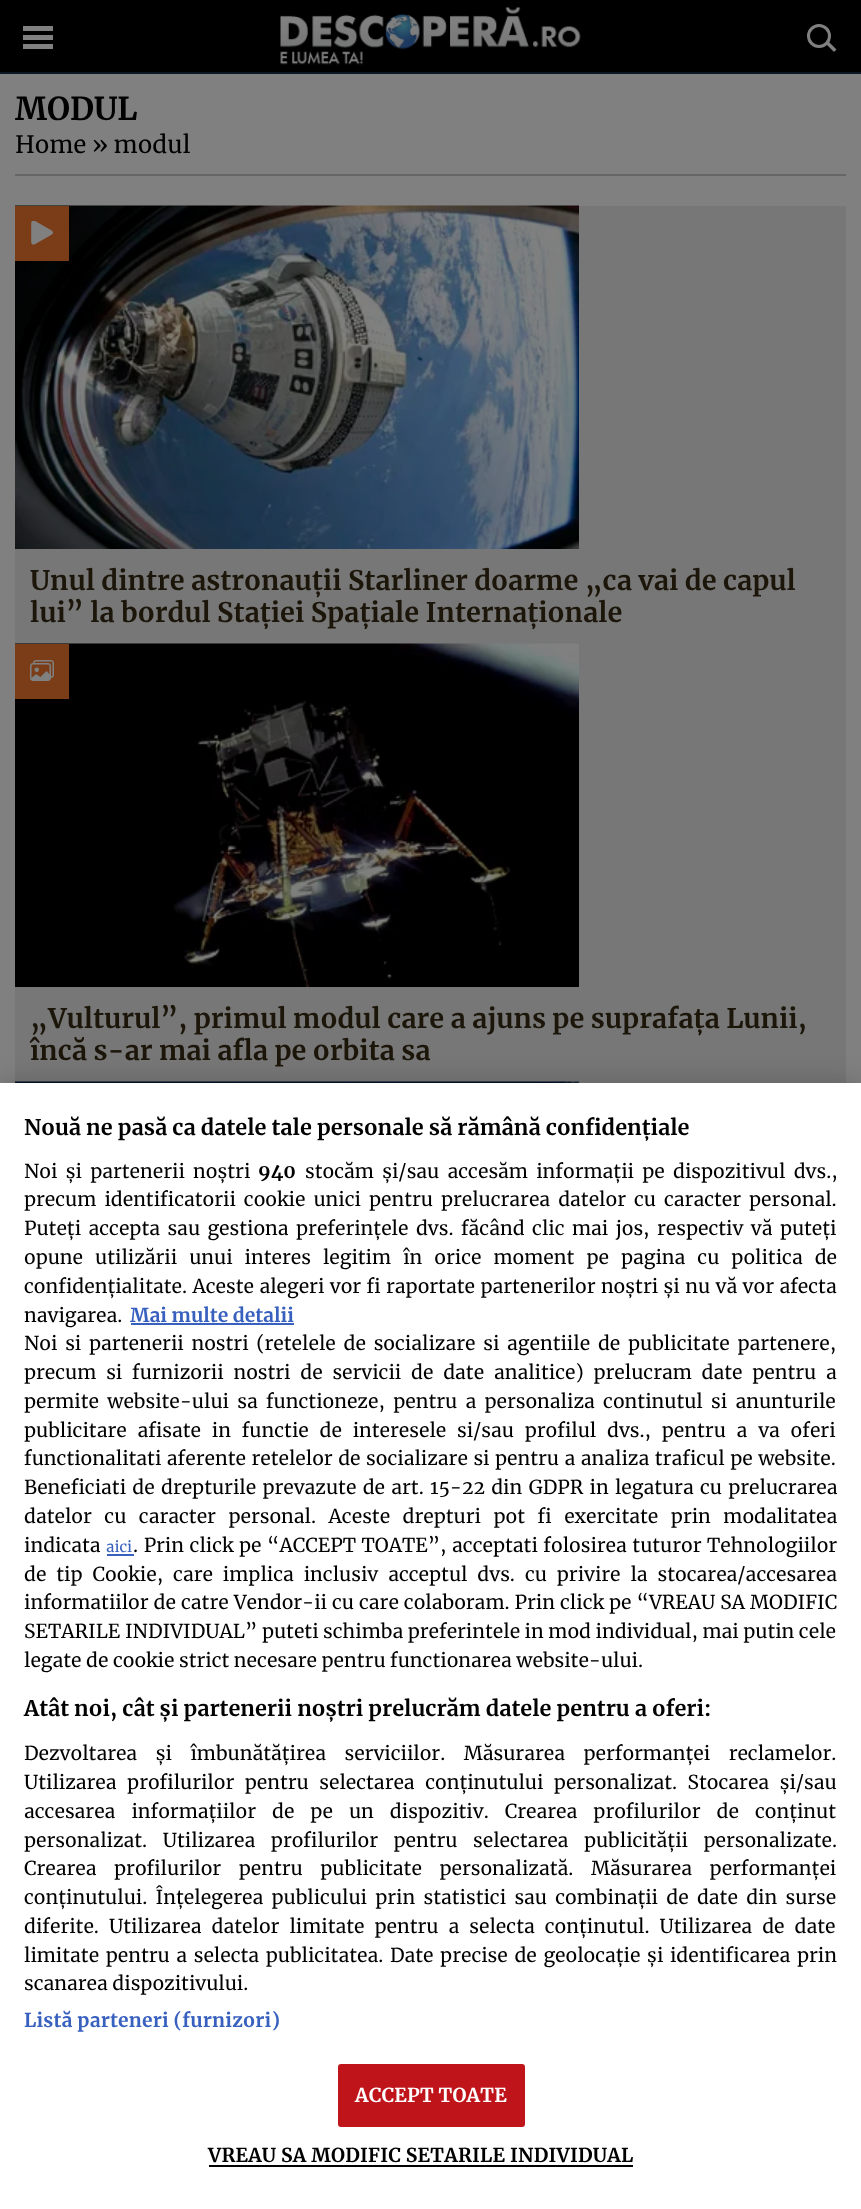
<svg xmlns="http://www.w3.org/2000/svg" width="861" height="2209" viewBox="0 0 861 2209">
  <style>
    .t1 { font: bold 31.5px Merriweather; fill: #000; }
    .t2 { font: 24px Merriweather; fill: #000; }
    .t3 { font: bold 27px Merriweather; fill: #1c160a; }
    .t4 { font: bold 21.6px Merriweather; fill: #000; }
    .t5 { font: 19.2px Merriweather; fill: #000; }
    .t6 { font: bold 19.2px Merriweather; fill: #000; }
    .t7 { font: bold 19.2px Merriweather; fill: #3860be; }
    .t8 { font: 15px Merriweather; fill: #3860be; }
    .t9 { font: bold 19.2px Merriweather; letter-spacing: 0.2px; fill: #3860be; }
    .t10 { font: bold 19.2px Merriweather; letter-spacing: 0.2px; fill: #fff; }
    .t11 { font: bold 19.2px Merriweather; letter-spacing: 0.2px; fill: #000; }
  </style>
  <defs>
    <clipPath id="clip1"><rect x="30" y="564" width="801" height="65"/></clipPath>
  </defs>
  <rect width="100%" height="100%" fill="#000"/>
  <rect x="0" y="72" width="861" height="2" fill="#0b1625"/>
  <rect x="23" y="35" width="30" height="5" fill="#808080"/>
  <rect x="23" y="26" width="30" height="5" fill="#808080"/>
  <rect x="23" y="44" width="30" height="5" fill="#808080"/>
  <image x="280" y="7" width="301" height="58" href="images/1.png"/>
  <circle cx="819" cy="36" r="10.5" fill="none" stroke="#808080" stroke-width="3"/>
  <path d="M825.5 43.5L828 41L836.5 49.5L834 52Z" fill="#808080"/>
  <rect x="0" y="74" width="861" height="1009" fill="#808080"/>
  <rect x="15" y="174" width="831" height="2" fill="#666"/>
  <text x="15" y="120" class="t1">MODUL</text>
  <text x="15" y="153" class="t2">Home » modul</text>
  <rect x="15" y="206" width="831" height="876" fill="#777"/>
  <image x="15" y="205" width="564" height="344" href="images/2.png"/>
  <rect x="15" y="206" width="54" height="55" fill="#7a3d18"/>
  <image x="31" y="221" width="22" height="24" href="images/3.png"/>
  <text x="30" y="590" class="t3">Unul dintre astronauții Starliner doarme „ca vai de capul</text>
  <g clip-path="url(#clip1)">
    <text x="30" y="622" class="t3">lui” la bordul Stației Spațiale Internaționale</text>
  </g>
  <image x="15" y="643" width="564" height="344" href="images/4.png"/>
  <rect x="15" y="644" width="54" height="55" fill="#7a3d18"/>
  <image x="30" y="660" width="24" height="21" href="images/5.png"/>
  <text x="30" y="1028" class="t3">„Vulturul”, primul modul care a ajuns pe suprafața Lunii,</text>
  <text x="30" y="1060" class="t3">încă s-ar mai afla pe orbita sa</text>
  <rect x="579" y="1082" width="267" height="1" fill="#777"/>
  <image x="15" y="1081" width="564" height="2" href="images/6.png"/>
  <rect x="0" y="1083" width="861" height="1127" fill="#00000033" filter="blur(13.5px)"/>
  <rect x="0" y="1083" width="861" height="1126" fill="#fff"/>
  <text x="24" y="1135" class="t4">Nouă ne pasă ca datele tale personale să rămână confidențiale</text>
  <text x="24" y="1178" word-spacing="3.75" class="t5">Noi și partenerii noștri</text>
  <text x="258" y="1178" class="t6">940</text>
  <text x="305" y="1178" word-spacing="3.75" class="t5">stocăm și/sau accesăm informații pe dispozitivul dvs.,</text>
  <text x="24" y="1206" word-spacing="3.5" class="t5">precum identificatorii cookie unici pentru prelucrarea datelor cu caracter personal.</text>
  <text x="24" y="1235" word-spacing="2.9" class="t5">Puteți accepta sau gestiona preferințele dvs. făcând clic mai jos, respectiv vă puteți</text>
  <text x="24" y="1264" word-spacing="7.5" class="t5">opune utilizării unui interes legitim în orice moment pe pagina cu politica de</text>
  <text x="24" y="1293" word-spacing="0.9" class="t5">confidențialitate. Aceste alegeri vor fi raportate partenerilor noștri și nu vă vor afecta</text>
  <text x="24" y="1322" class="t5">navigarea.</text>
  <text x="130" y="1322" class="t7">Mai multe detalii</text>
  <rect x="131" y="1323" width="163" height="2" fill="#3860be"/>
  <text x="24" y="1350" word-spacing="3.25" class="t5">Noi si partenerii nostri (retelele de socializare si agentiile de publicitate partenere,</text>
  <text x="24" y="1379" word-spacing="5.25" class="t5">precum si furnizorii nostri de servicii de date analitice) prelucram date pentru a</text>
  <text x="24" y="1408" word-spacing="3.75" class="t5">permite website-ului sa functioneze, pentru a personaliza continutul si anunturile</text>
  <text x="24" y="1437" word-spacing="6.25" class="t5">publicitare afisate in functie de interesele si/sau profilul dvs., pentru a va oferi</text>
  <text x="24" y="1465" word-spacing="1" class="t5">functionalitati aferente retelelor de socializare si pentru a analiza traficul pe website.</text>
  <text x="24" y="1494" word-spacing="1.75" class="t5">Beneficiati de drepturile prevazute de art. 15-22 din GDPR in legatura cu prelucrarea</text>
  <text x="24" y="1523" word-spacing="8" class="t5">datelor cu caracter personal. Aceste drepturi pot fi exercitate prin modalitatea</text>
  <text x="24" y="1552" class="t5">indicata</text>
  <text x="106" y="1552" class="t8">aici</text>
  <rect x="107" y="1554" width="27" height="2" fill="#3860be"/>
  <text x="133" y="1552" word-spacing="1" class="t5">. Prin click pe “ACCEPT TOATE”, acceptati folosirea tuturor Tehnologiilor</text>
  <text x="24" y="1581" word-spacing="5.4" class="t5">de tip Cookie, care implica inclusiv acceptul dvs. cu privire la stocarea/accesarea</text>
  <text x="24" y="1609" word-spacing="0.5" class="t5">informatiilor de catre Vendor-ii cu care colaboram. Prin click pe “VREAU SA MODIFIC</text>
  <text x="24" y="1638" class="t5">SETARILE INDIVIDUAL” puteti schimba preferintele in mod individual, mai putin cele</text>
  <text x="24" y="1667" class="t5">legate de cookie strict necesare pentru functionarea website-ului.</text>
  <text x="24" y="1716" class="t4">Atât noi, cât și partenerii noștri prelucrăm datele pentru a oferi:</text>
  <text x="24" y="1760" word-spacing="14" class="t5">Dezvoltarea și îmbunătățirea serviciilor. Măsurarea performanței reclamelor.</text>
  <text x="24" y="1789" word-spacing="6" class="t5">Utilizarea profilurilor pentru selectarea conținutului personalizat. Stocarea și/sau</text>
  <text x="24" y="1818" word-spacing="11.5" class="t5">accesarea informațiilor de pe un dispozitiv. Crearea profilurilor de conținut</text>
  <text x="24" y="1847" word-spacing="11" class="t5">personalizat. Utilizarea profilurilor pentru selectarea publicității personalizate.</text>
  <text x="24" y="1875" word-spacing="13" class="t5">Crearea profilurilor pentru publicitate personalizată. Măsurarea performanței</text>
  <text x="24" y="1904" word-spacing="3.75" class="t5">conținutului. Înțelegerea publicului prin statistici sau combinații de date din surse</text>
  <text x="24" y="1933" word-spacing="5.5" class="t5">diferite. Utilizarea datelor limitate pentru a selecta conținutul. Utilizarea de date</text>
  <text x="24" y="1962" word-spacing="2.1" class="t5">limitate pentru a selecta publicitatea. Date precise de geolocație și identificarea prin</text>
  <text x="24" y="1990" class="t5">scanarea dispozitivului.</text>
  <text x="24" y="2027" class="t9">Listă parteneri (furnizori)</text>
  <rect x="339" y="2065" width="185" height="61" rx="2" fill="#bf141a" stroke="#bf141a" stroke-width="2"/>
  <text x="355" y="2102" class="t10">ACCEPT TOATE</text>
  <text x="208" y="2162" class="t11">VREAU SA MODIFIC SETARILE INDIVIDUAL</text>
  <rect x="209" y="2165" width="424" height="2" fill="#000"/>
</svg>
